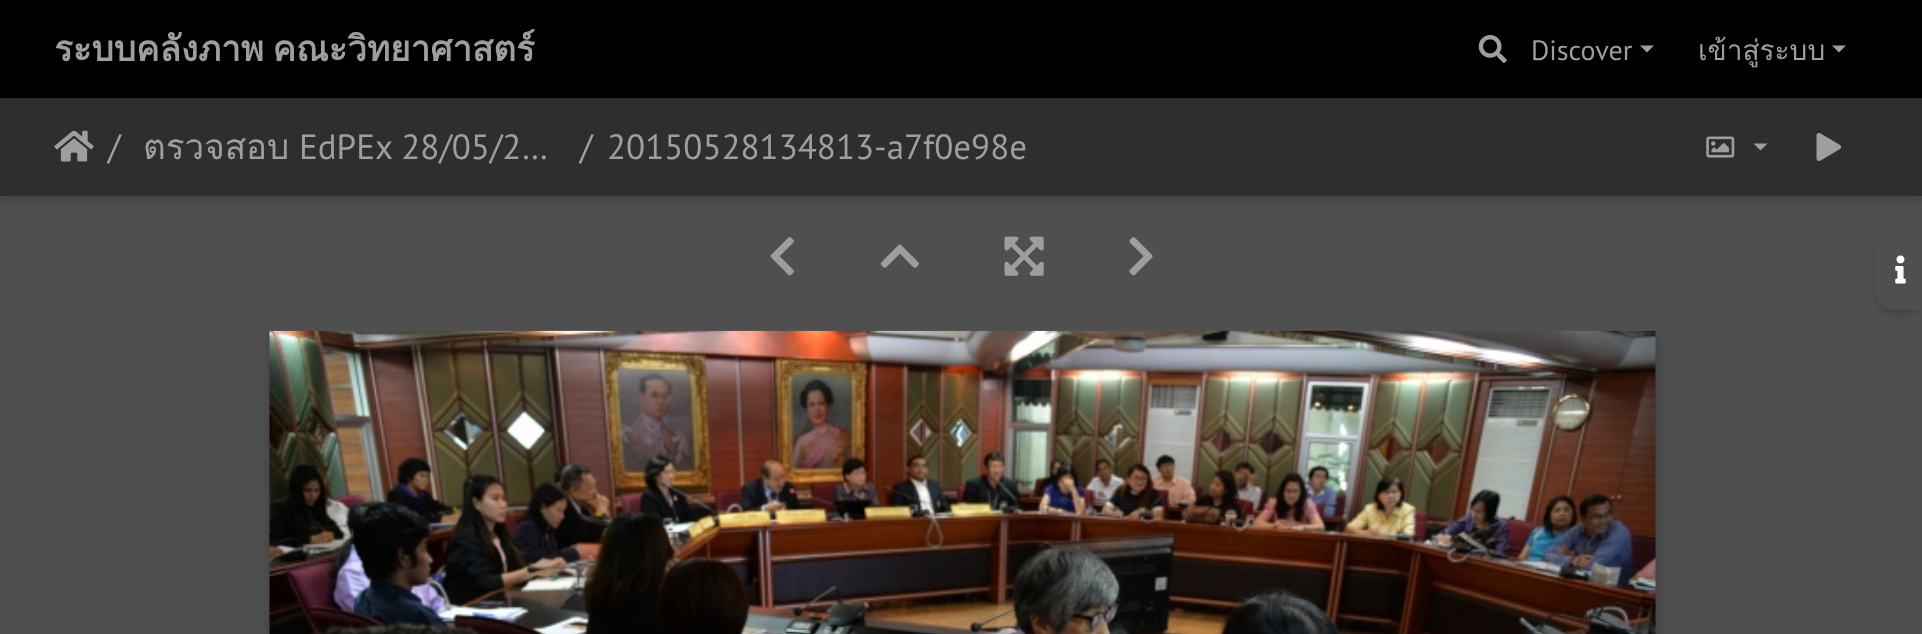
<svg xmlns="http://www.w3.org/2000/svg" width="1922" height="634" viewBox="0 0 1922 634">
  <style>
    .t1 { font: bold 35px Loma; fill: #9e9e9e; }
    .t2 { font: 28px PT Sans; fill: #9e9e9e; }
    .t3 { font: 28px Loma; fill: #9e9e9e; }
    .t4 { font: 35px PT Sans; fill: #9e9e9e; }
    .t5 { font: 35px Loma; fill: #9e9e9e; }
  </style>
  <defs>
    <clipPath id="clip1"><rect x="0" y="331" width="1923" height="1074"/></clipPath>
  </defs>
  <rect width="100%" height="100%" fill="#4f4f4f"/>
  <rect x="2" y="105" width="1920" height="95" fill="#00000033" filter="blur(4.5px)"/>
  <rect x="0" y="0" width="1922" height="98" fill="#000"/>
  <text x="54" y="61" word-spacing="-3" class="t1">ระบบคลังภาพ คณะวิทยาศาสตร์</text>
  <image x="1478" y="35" width="29" height="28" href="images/1.png"/>
  <text x="1531" y="60" class="t2">Discover</text>
  <path d="M1640 45.5H1654L1647 52.5Z" fill="#9e9e9e"/>
  <text x="1698" y="60" class="t3">เข้าสู่ระบบ</text>
  <path d="M1832 45.5H1846L1839 52.5Z" fill="#9e9e9e"/>
  <rect x="0" y="98" width="1922" height="98" fill="#2e2e2e"/>
  <image x="54" y="130" width="40" height="32" href="images/2.png"/>
  <text x="108" y="159" class="t4">/</text>
  <text x="143" y="159" class="t5">ตรวจสอบ</text>
  <text x="299" y="159" class="t4">EdPEx 28/05/2…</text>
  <text x="580" y="159" class="t4">/</text>
  <text x="607" y="159" class="t4">20150528134813-a7f0e98e</text>
  <image x="1706" y="136" width="29" height="22" href="images/3.png"/>
  <path d="M1753.5 143.5H1767.5L1760.5 150.5Z" fill="#9e9e9e"/>
  <image x="1816" y="133" width="25" height="28" href="images/4.png"/>
  <image x="770" y="237" width="24" height="39" href="images/5.png"/>
  <image x="880" y="244" width="39" height="24" href="images/6.png"/>
  <image x="1004" y="236" width="40" height="40" href="images/7.png"/>
  <image x="1129" y="237" width="24" height="39" href="images/8.png"/>
  <rect x="1878" y="236" width="44" height="77" rx="16" fill="#00000033" filter="blur(4.5px)"/>
  <path d="M1894 229H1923V310H1894C1884 310 1876 302 1876 292V247C1876 237 1884 229 1894 229Z" fill="#4f4f4f"/>
  <path d="M1894 229H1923V310H1894C1884 310 1876 302 1876 292V247C1876 237 1884 229 1894 229ZM1894 231H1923V308H1894C1885 308 1878 301 1878 292V247C1878 238 1885 231 1894 231Z" fill="#4f4f4f" fill-rule="evenodd"/>
  <image x="1895" y="255" width="11" height="29" href="images/9.png"/>
  <g clip-path="url(#clip1)">
    <rect x="270" y="336" width="1386" height="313" fill="#0000003b" filter="blur(5px)"/>
  </g>
  <image x="269" y="330" width="1387" height="304" href="images/10.png"/>
</svg>
